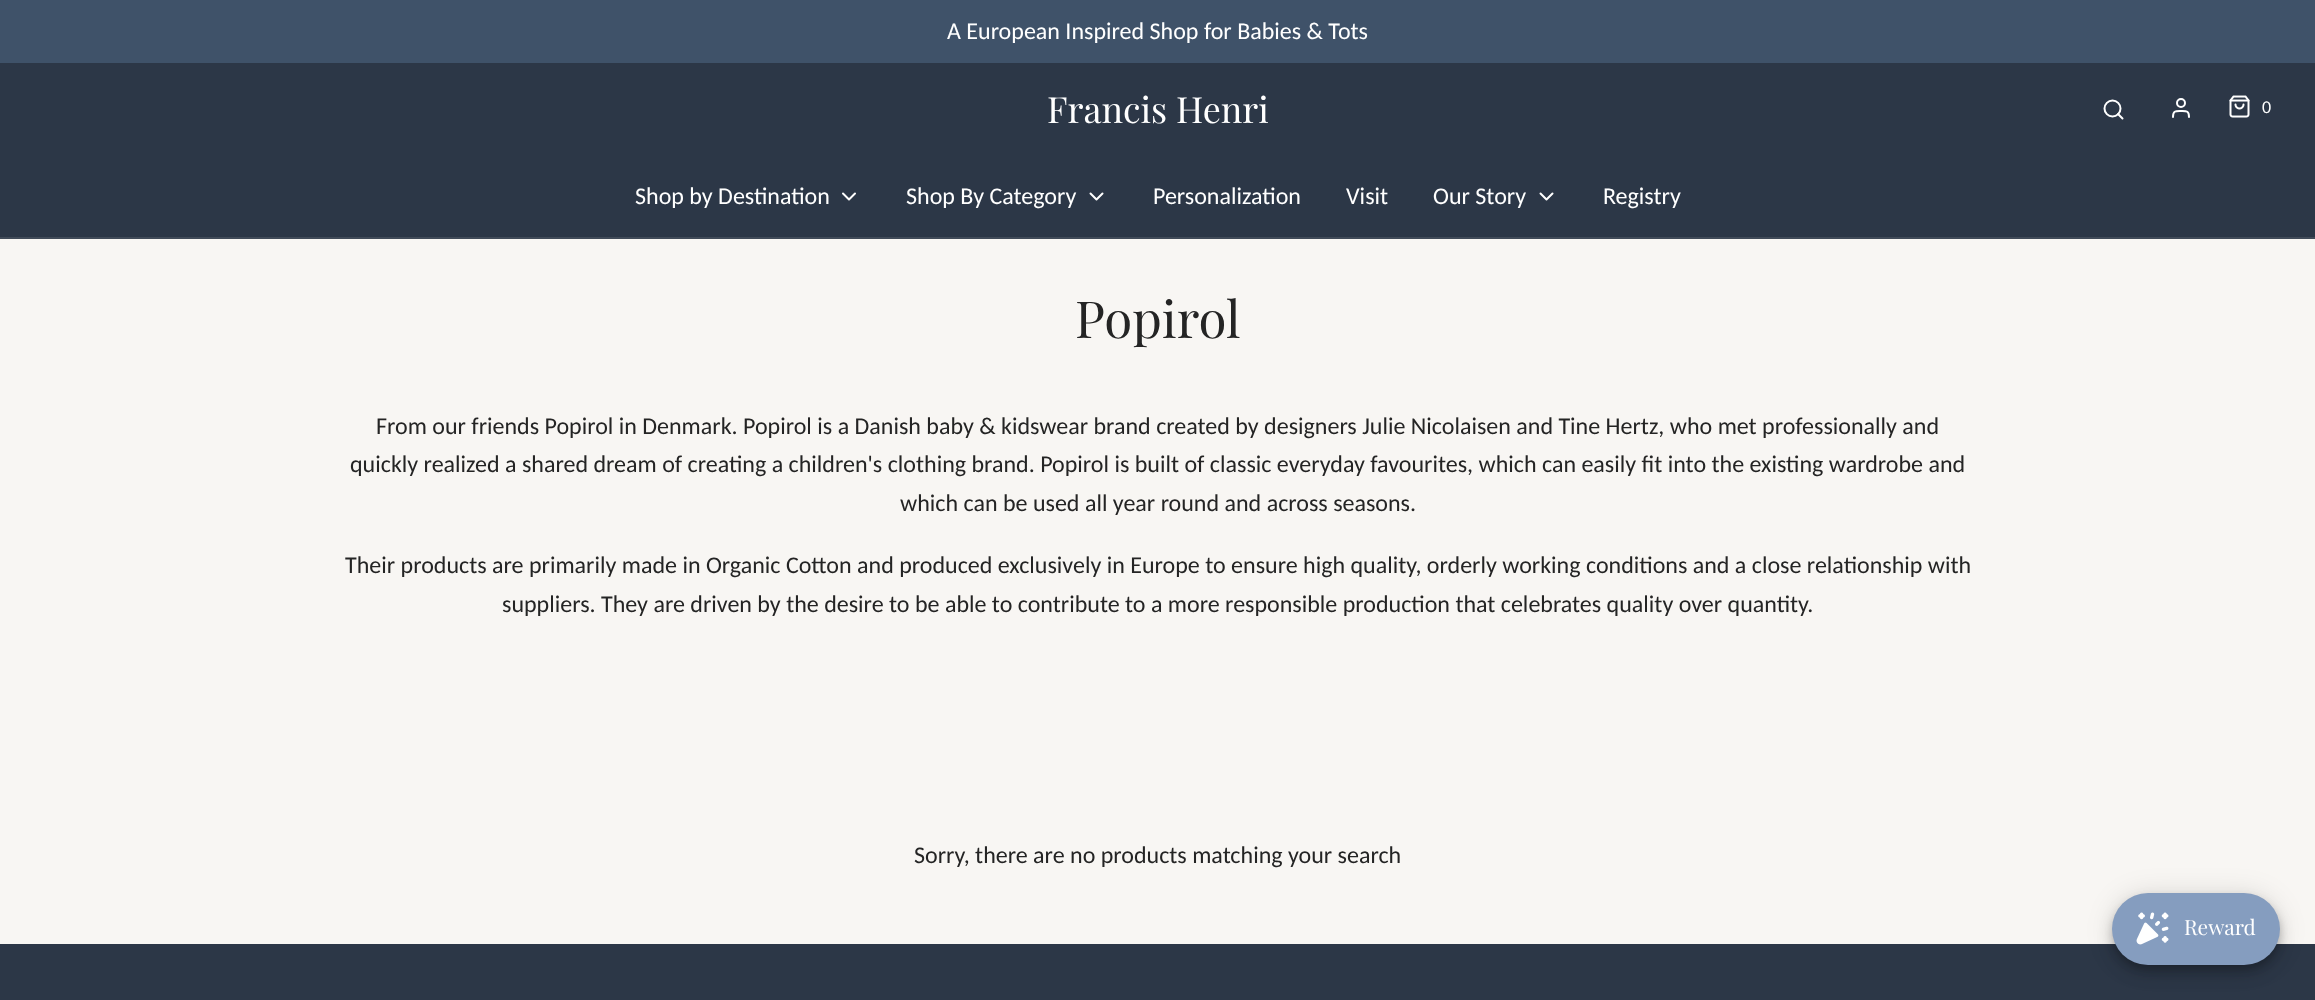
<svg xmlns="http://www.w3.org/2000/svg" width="2315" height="1000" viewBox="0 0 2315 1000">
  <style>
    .t1 { font: 24px Carlito; fill: #fff; }
    .t2 { font: 36px Playfair Display; fill: #fff; }
    .t3 { font: 18px Carlito; fill: #fff; }
    .t4 { font: 51px Playfair Display; fill: #242424; }
    .t5 { font: 24px Carlito; fill: #242424; }
    .t6 { font: 21px Playfair Display; fill: #fff; }
  </style>
  <rect width="100%" height="100%" fill="#2c3747"/>
  <rect x="0" y="0" width="2315" height="63" fill="#3f5269"/>
  <text x="947" y="39" class="t1">A European Inspired Shop for Babies &amp; Tots</text>
  <rect x="0" y="237" width="2315" height="2" fill="#414b59"/>
  <text x="1047" y="123" class="t2">Francis Henri</text>
  <circle cx="2112.5" cy="108.5" r="8" fill="none" stroke="#fff" stroke-width="2"/>
  <path d="M2122.5 118.5L2118 114" fill="none" stroke="#fff" stroke-width="2" stroke-linecap="round" stroke-linejoin="round"/>
  <path d="M2189 117C2189 110.5 2186.5 111 2181 111C2175.5 111 2173 110.5 2173 117" fill="none" stroke="#fff" stroke-width="2" stroke-linecap="round" stroke-linejoin="round"/>
  <circle cx="2181" cy="103" r="4" fill="none" stroke="#fff" stroke-width="2"/>
  <image x="2229" y="95" width="21" height="23" href="images/1.png"/>
  <text x="2262" y="113" class="t3">0</text>
  <text x="635" y="204" class="t1">Shop by Destination</text>
  <path d="M843 193.5L849 199.5L855 193.5" fill="none" stroke="#fff" stroke-width="2" stroke-linecap="round" stroke-linejoin="round"/>
  <text x="906" y="204" class="t1">Shop By Category</text>
  <path d="M1090.5 193.5L1096.5 199.5L1102.5 193.5" fill="none" stroke="#fff" stroke-width="2" stroke-linecap="round" stroke-linejoin="round"/>
  <text x="1153" y="204" class="t1">Personalization</text>
  <text x="1346" y="204" class="t1">Visit</text>
  <text x="1433" y="204" class="t1">Our Story</text>
  <path d="M1540.5 193.5L1546.5 199.5L1552.5 193.5" fill="none" stroke="#fff" stroke-width="2" stroke-linecap="round" stroke-linejoin="round"/>
  <text x="1603" y="204" class="t1">Registry</text>
  <rect x="0" y="239" width="2315" height="705" fill="#f8f6f3"/>
  <text x="1075" y="338" class="t4">Popirol</text>
  <text x="376" y="434" class="t5">From our friends Popirol in Denmark. Popirol is a Danish baby &amp; kidswear brand created by designers Julie Nicolaisen and Tine Hertz, who met professionally and</text>
  <text x="350" y="472" class="t5">quickly realized a shared dream of creating a children's clothing brand. Popirol is built of classic everyday favourites, which can easily fit into the existing wardrobe and</text>
  <text x="900" y="511" class="t5">which can be used all year round and across seasons.</text>
  <text x="345" y="573" class="t5">Their products are primarily made in Organic Cotton and produced exclusively in Europe to ensure high quality, orderly working conditions and a close relationship with</text>
  <text x="502" y="612" class="t5">suppliers. They are driven by the desire to be able to contribute to a more responsible production that celebrates quality over quantity.</text>
  <text x="914" y="863" class="t5">Sorry, there are no products matching your search</text>
  <rect x="2112" y="894" width="168" height="72" rx="36" fill="#0000001f" filter="blur(13.5px)"/>
  <rect x="2112" y="902" width="168" height="72" rx="36" fill="#00000024" filter="blur(7.5px)"/>
  <rect x="2114" y="899" width="165" height="69" rx="34.5" fill="#00000033" filter="blur(4px)"/>
  <rect x="2112" y="893" width="168" height="72" rx="36" fill="#859dbf"/>
  <image x="2136" y="912" width="33" height="33" href="images/2.png"/>
  <text x="2184" y="935" class="t6">Reward</text>
</svg>
